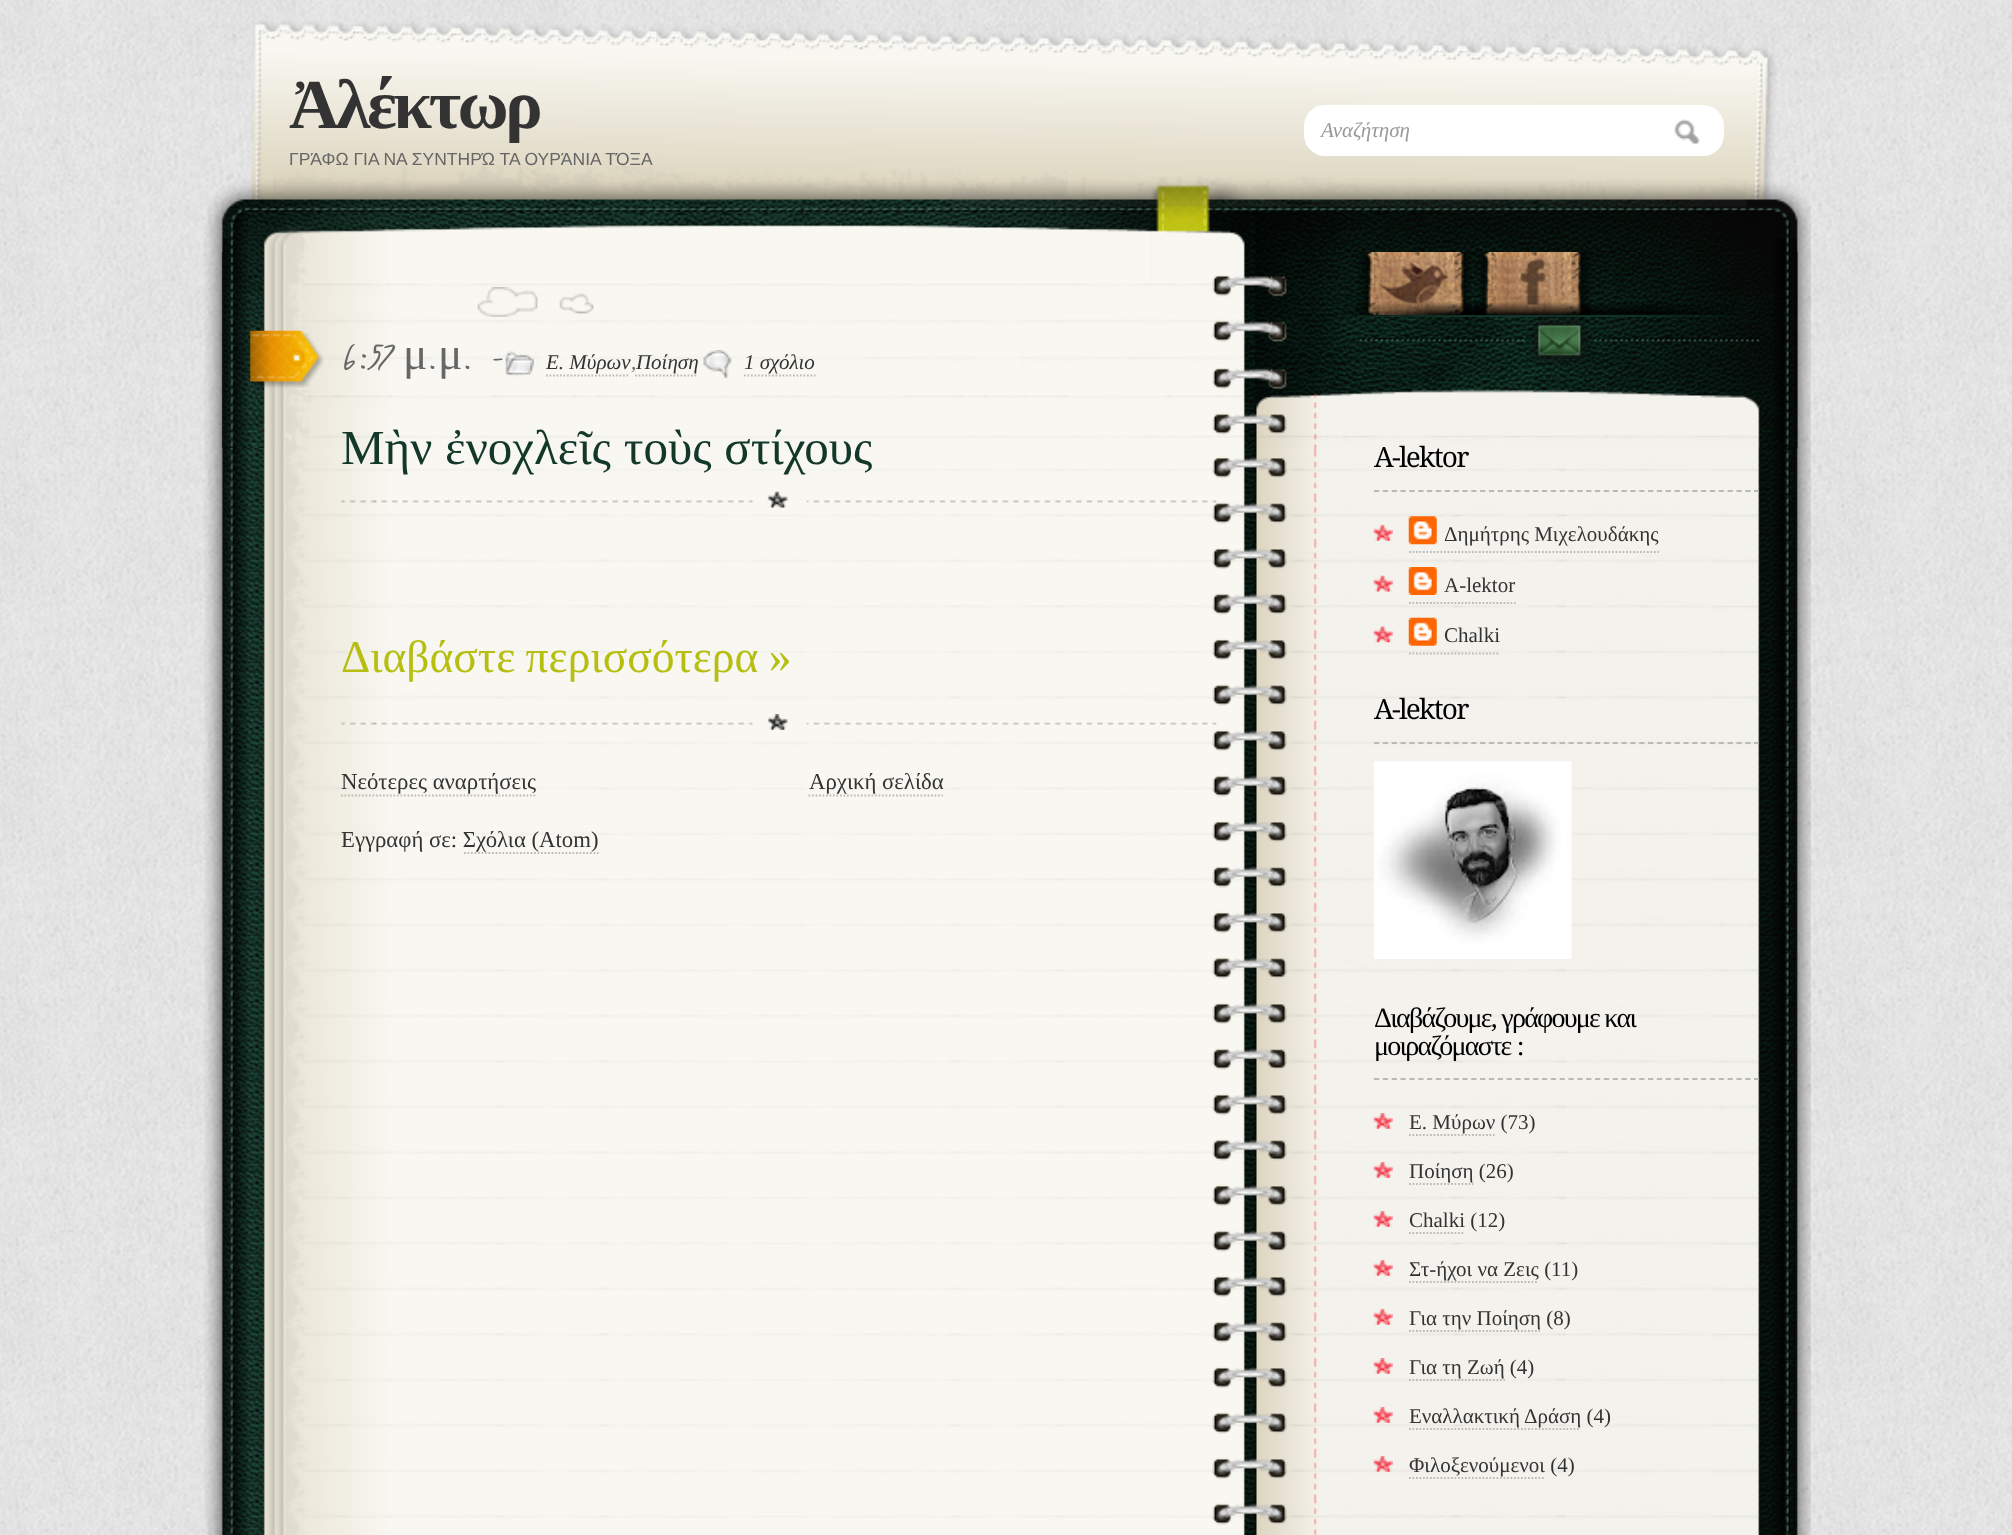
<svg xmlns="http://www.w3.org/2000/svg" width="2012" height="1535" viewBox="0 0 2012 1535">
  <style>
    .t1 { font: bold 70px Liberation Serif; letter-spacing: -3.5px; fill: #333; }
    .t2 { font: 17.5px Liberation Sans; fill: #666; }
    .t3 { font: italic 21px Liberation Serif; fill: #999; }
    .t4 { font: 45.5px Kristi; fill: #666; }
    .t5 { font: 45.5px Liberation Serif; fill: #666; }
    .t6 { font: italic 21px Liberation Serif; fill: #333; }
    .t7 { font: italic 21px Liberation Serif; fill: #666; }
    .t8 { font: 49px Liberation Serif; fill: #13382a; }
    .t9 { font: 45.5px Liberation Serif; fill: #b6be10; }
    .t10 { font: 22.75px Liberation Serif; fill: #333; }
    .t11 { font: 28px Droid Serif; letter-spacing: -1.75px; fill: #000; }
    .t12 { font: 21px Liberation Serif; fill: #333; }
    .t13 { font: 28px Liberation Serif; letter-spacing: -1.75px; fill: #000; }
  </style>
  <rect width="100%" height="100%" fill="#fff"/>
  <image x="0" y="0" width="2012" height="1535" href="images/1.png"/>
  <image x="204" y="21" width="1607" height="231" href="images/2.png"/>
  <text x="289" y="128" class="t1">Ἀλέκτωρ</text>
  <text x="289" y="165" class="t2">ΓΡΆΦΩ ΓΙΑ ΝΑ ΣΥΝΤΗΡΏ ΤΑ ΟΥΡΆΝΙΑ ΤΌΞΑ</text>
  <rect x="1304" y="105" width="420" height="51" rx="21" fill="#fff"/>
  <image x="1674" y="119" width="26" height="25" href="images/3.png"/>
  <text x="1321" y="137" class="t3">Αναζήτηση</text>
  <image x="204" y="252" width="1607" height="1283" href="images/4.png"/>
  <image x="221" y="252" width="1577" height="196" href="images/5.png"/>
  <image x="477" y="287" width="117" height="30" href="images/6.png"/>
  <image x="250" y="330" width="74" height="58" href="images/7.png"/>
  <image x="341" y="491" width="876" height="17" href="images/8.png"/>
  <text x="341" y="369" class="t4">6:57</text>
  <text x="403" y="369" class="t5">μ</text>
  <text x="427" y="369" class="t4">.</text>
  <text x="438" y="369" class="t5">μ</text>
  <text x="462" y="369" word-spacing="7" class="t4">. -</text>
  <image x="505" y="351" width="29" height="26" href="images/9.png"/>
  <text x="546" y="369" class="t6">Ε. Μύρων Ποίηση</text>
  <image x="703" y="350" width="29" height="28" href="images/10.png"/>
  <text x="744" y="369" class="t6">1 σχόλιο</text>
  <path d="M744 375.5H815.5" fill="none" stroke="#bbb" stroke-width="1.8" stroke-dasharray="1.75 1.75"/>
  <text x="631" y="369" class="t7">,</text>
  <path d="M546 375.5H630" fill="none" stroke="#bbb" stroke-width="1.8" stroke-dasharray="1.75 1.75"/>
  <path d="M635 375.5H698" fill="none" stroke="#bbb" stroke-width="1.8" stroke-dasharray="1.75 1.75"/>
  <text x="341" y="464" word-spacing="0.5" class="t8">Μὴν ἐνοχλεῖς τοὺς στίχους</text>
  <image x="341" y="714" width="876" height="16" href="images/11.png"/>
  <text x="341" y="672" word-spacing="-1" class="t9">Διαβάστε περισσότερα »</text>
  <text x="341" y="789" class="t10">Νεότερες αναρτήσεις</text>
  <path d="M341 795.5H537" fill="none" stroke="#bbb" stroke-width="1.8" stroke-dasharray="1.75 1.75"/>
  <text x="809" y="789" class="t10">Αρχική σελίδα</text>
  <path d="M808.5 795.5H943" fill="none" stroke="#bbb" stroke-width="1.8" stroke-dasharray="1.75 1.75"/>
  <text x="341" y="847" class="t10">Εγγραφή σε: Σχόλια (Atom)</text>
  <path d="M464 853H598.5" fill="none" stroke="#bbb" stroke-width="1.8" stroke-dasharray="1.75 1.75"/>
  <image x="1342" y="303" width="393" height="14" href="images/12.png"/>
  <image x="1356" y="252" width="116" height="63" href="images/13.png"/>
  <image x="1473" y="252" width="118" height="63" href="images/14.png"/>
  <image x="1357" y="316" width="402" height="48" href="images/15.png"/>
  <path d="M1374 491H1759" fill="none" stroke="#b9b9b5" stroke-width="1.8" stroke-dasharray="5.25 3.59"/>
  <text x="1374" y="467" class="t11">A-lektor</text>
  <image x="1373" y="525" width="20" height="16" href="images/16.png"/>
  <image x="1408" y="516" width="29" height="29" href="images/17.png"/>
  <path d="M1409 552H1659" fill="none" stroke="#bbb" stroke-width="1.8" stroke-dasharray="1.75 1.75"/>
  <text x="1444" y="541" class="t12">Δημήτρης Μιχελουδάκης</text>
  <image x="1373" y="575" width="20" height="17" href="images/18.png"/>
  <image x="1408" y="567" width="29" height="28" href="images/19.png"/>
  <path d="M1409 603H1515.5" fill="none" stroke="#bbb" stroke-width="1.8" stroke-dasharray="1.75 1.75"/>
  <text x="1444" y="592" class="t12">A-lektor</text>
  <image x="1373" y="626" width="20" height="17" href="images/20.png"/>
  <image x="1408" y="617" width="29" height="29" href="images/21.png"/>
  <path d="M1409 653.5H1500" fill="none" stroke="#bbb" stroke-width="1.8" stroke-dasharray="1.75 1.75"/>
  <text x="1444" y="642" class="t12">Chalki</text>
  <path d="M1374 743H1759" fill="none" stroke="#b9b9b5" stroke-width="1.8" stroke-dasharray="5.25 3.59"/>
  <text x="1374" y="719" class="t11">A-lektor</text>
  <image x="1373" y="761" width="199" height="198" href="images/22.png"/>
  <path d="M1374 1079H1759" fill="none" stroke="#b9b9b5" stroke-width="1.8" stroke-dasharray="5.25 3.59"/>
  <text x="1374" y="1027" class="t13">Διαβάζουμε, γράφουμε και</text>
  <text x="1374" y="1055" word-spacing="1" class="t13">μοιραζόμαστε :</text>
  <image x="1373" y="1113" width="20" height="16" href="images/16.png"/>
  <text x="1409" y="1129" class="t12">Ε. Μύρων (73)</text>
  <path d="M1409 1135H1494.5" fill="none" stroke="#bbb" stroke-width="1.8" stroke-dasharray="1.75 1.75"/>
  <image x="1373" y="1162" width="20" height="16" href="images/16.png"/>
  <text x="1409" y="1178" class="t12">Ποίηση (26)</text>
  <path d="M1409 1184H1473.5" fill="none" stroke="#bbb" stroke-width="1.8" stroke-dasharray="1.75 1.75"/>
  <image x="1373" y="1211" width="20" height="16" href="images/16.png"/>
  <text x="1409" y="1227" class="t12">Chalki (12)</text>
  <path d="M1409 1233H1465" fill="none" stroke="#bbb" stroke-width="1.8" stroke-dasharray="1.75 1.75"/>
  <image x="1373" y="1260" width="20" height="16" href="images/16.png"/>
  <text x="1409" y="1276" class="t12">Στ-ήχοι να Ζεις (11)</text>
  <path d="M1409 1282H1538" fill="none" stroke="#bbb" stroke-width="1.8" stroke-dasharray="1.75 1.75"/>
  <image x="1373" y="1309" width="20" height="16" href="images/16.png"/>
  <text x="1409" y="1325" class="t12">Για την Ποίηση (8)</text>
  <path d="M1409 1331H1540" fill="none" stroke="#bbb" stroke-width="1.8" stroke-dasharray="1.75 1.75"/>
  <image x="1373" y="1358" width="20" height="16" href="images/23.png"/>
  <text x="1409" y="1374" class="t12">Για τη Ζωή (4)</text>
  <path d="M1409 1380H1505" fill="none" stroke="#bbb" stroke-width="1.8" stroke-dasharray="1.75 1.75"/>
  <image x="1373" y="1407" width="20" height="16" href="images/24.png"/>
  <text x="1409" y="1423" class="t12">Εναλλακτική Δράση (4)</text>
  <path d="M1409 1429H1580" fill="none" stroke="#bbb" stroke-width="1.8" stroke-dasharray="1.75 1.75"/>
  <image x="1373" y="1456" width="20" height="16" href="images/25.png"/>
  <text x="1409" y="1472" class="t12">Φιλοξενούμενοι (4)</text>
  <path d="M1409 1478H1545" fill="none" stroke="#bbb" stroke-width="1.8" stroke-dasharray="1.75 1.75"/>
</svg>
